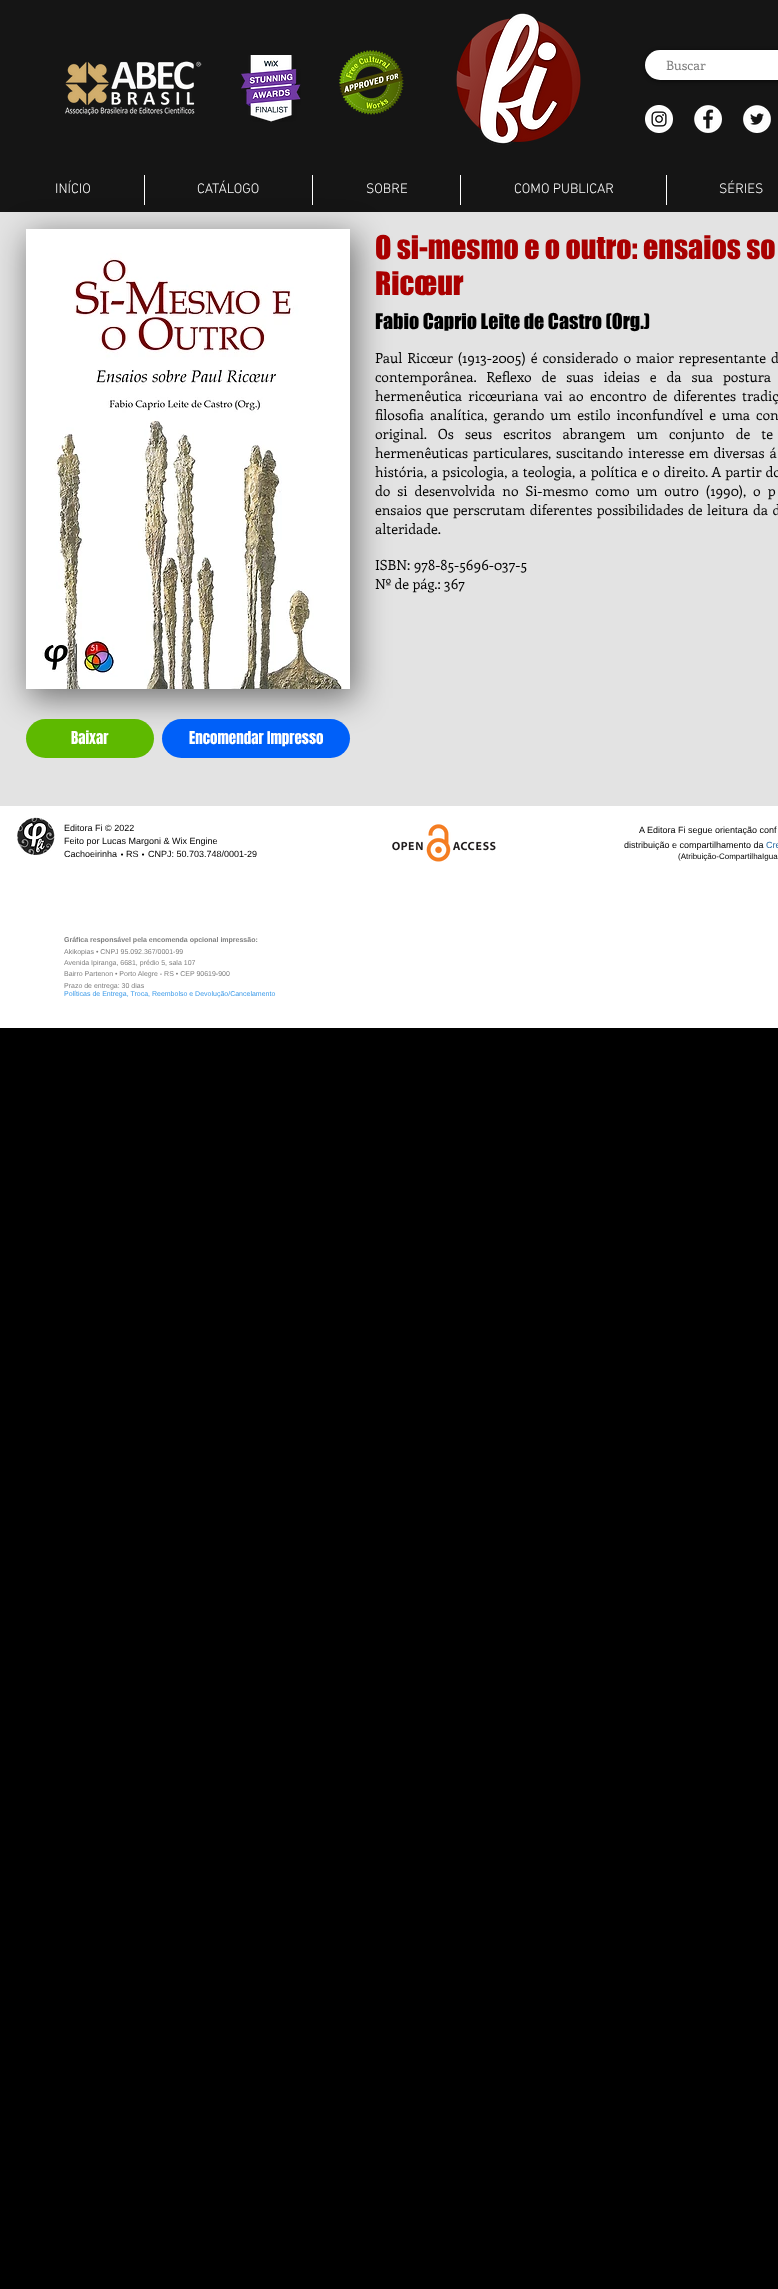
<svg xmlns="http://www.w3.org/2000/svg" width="778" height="2289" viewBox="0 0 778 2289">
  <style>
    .t1 { font: 13px Enriqueta; fill: #787878; }
    .t2 { font: 300 14px 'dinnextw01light'; fill: #fff; }
    .t3 { font: 30px 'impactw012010'; fill: #a90000; }
    .t4 { font: 20px 'impactw012010'; fill: #000; }
    .t5 { font: 14px Enriqueta; fill: #000; }
    .t6 { font: 15px Anton; fill: #fff; }
    .t7 { font: 9px Liberation Sans; fill: #000; }
    .t8 { font: 9px Signika; fill: #000; }
    .t9 { font: 9px Liberation Sans; fill: #2b6ca3; }
    .t10 { font: 8px Liberation Sans; fill: #000; }
    .t11 { font: bold 7px Liberation Sans; fill: #7f7f7f; }
    .t12 { font: 7px Liberation Sans; fill: #7f7f7f; }
    .t13 { font: 7px Liberation Sans; fill: #3d9be9; }
  </style>
  <rect width="100%" height="100%" fill="#000"/>
  <rect x="0" y="0" width="778" height="212" fill="#151515"/>
  <image x="65" y="61" width="137" height="54" href="images/1.png"/>
  <image x="241" y="55" width="60" height="67" href="images/2.png"/>
  <image x="339" y="50" width="65" height="65" href="images/3.png"/>
  <image x="456" y="12" width="125" height="133" href="images/4.png"/>
  <rect x="645" y="51" width="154" height="30" rx="15" fill="#00000099" filter="blur(2px)"/>
  <rect x="645" y="50" width="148" height="30" rx="15" fill="#fff"/>
  <text x="666" y="70" class="t1">Buscar</text>
  <image x="645" y="105" width="28" height="28" href="images/5.png"/>
  <image x="694" y="105" width="28" height="28" href="images/6.png"/>
  <image x="743" y="105" width="28" height="28" href="images/7.png"/>
  <text x="55" y="193" class="t2">INÍCIO</text>
  <rect x="144" y="175" width="1" height="30" fill="#fff"/>
  <text x="197" y="193" class="t2">CATÁLOGO</text>
  <rect x="312" y="175" width="1" height="30" fill="#fff"/>
  <text x="366" y="193" class="t2">SOBRE</text>
  <rect x="460" y="175" width="1" height="30" fill="#fff"/>
  <text x="514" y="193" class="t2">COMO PUBLICAR</text>
  <rect x="666" y="175" width="1" height="30" fill="#fff"/>
  <text x="719" y="193" class="t2">SÉRIES</text>
  <rect x="0" y="212" width="778" height="594" fill="#e3e3e3"/>
  <rect x="29" y="236" width="326" height="462" fill="#00000080" filter="blur(16.5px)"/>
  <image x="26" y="229" width="324" height="460" href="images/8.png"/>
  <text x="375" y="259" class="t3">O si-mesmo e o outro: ensaios so</text>
  <text x="375" y="295" class="t3">Ricœur</text>
  <text x="375" y="329" class="t4">Fabio Caprio Leite de Castro (Org.)</text>
  <text x="375" y="363" word-spacing="1.5" class="t5">Paul Ricœur (1913-2005) é considerado o maior representante d</text>
  <text x="375" y="382" word-spacing="6.5" class="t5">contemporânea. Reflexo de suas ideias e da sua postura</text>
  <text x="375" y="401" word-spacing="2.75" class="t5">hermenêutica ricœuriana vai ao encontro de diferentes tradiç</text>
  <text x="375" y="420" word-spacing="2.5" class="t5">filosofia analítica, gerando um estilo inconfundível e uma con</text>
  <text x="375" y="439" word-spacing="7.75" class="t5">original. Os seus escritos abrangem um conjunto de te</text>
  <text x="375" y="458" word-spacing="1.5" class="t5">hermenêuticas particulares, suscitando interesse em diversas á</text>
  <text x="375" y="477" word-spacing="0.6" class="t5">história, a psicologia, a teologia, a política e o direito. A partir do</text>
  <text x="375" y="496" word-spacing="3.5" class="t5">do si desenvolvida no Si-mesmo como um outro (1990), o p</text>
  <text x="375" y="515" word-spacing="1" class="t5">ensaios que perscrutam diferentes possibilidades de leitura da d</text>
  <text x="375" y="534" class="t5">alteridade.</text>
  <text x="375" y="570" class="t5">ISBN: 978-85-5696-037-5</text>
  <text x="375" y="589" class="t5">Nº de pág.: 367</text>
  <rect x="26" y="719" width="128" height="39" rx="19.5" fill="#5eb900"/>
  <text x="71" y="744" class="t6">Baixar</text>
  <rect x="162" y="719" width="188" height="39" rx="19.5" fill="#0060f9"/>
  <text x="189" y="744" class="t6">Encomendar Impresso</text>
  <rect x="0" y="806" width="778" height="222" fill="#fff"/>
  <image x="17" y="817" width="38" height="38" href="images/9.png"/>
  <text x="64" y="831" class="t7">Editora Fi © 2022</text>
  <text x="64" y="844" class="t7">Feito por Lucas Margoni &amp; Wix Engine</text>
  <text x="64" y="857" class="t7">Cachoeirinha</text>
  <text x="120" y="857" class="t8">•</text>
  <text x="126" y="857" class="t7">RS</text>
  <text x="141" y="857" class="t8">•</text>
  <text x="148" y="857" class="t7">CNPJ: 50.703.748/0001-29</text>
  <image x="392" y="824" width="104" height="38" href="images/10.png"/>
  <text x="639" y="833" class="t7">A Editora Fi segue orientação conf</text>
  <text x="624" y="848" class="t7">distribuição e compartilhamento da</text>
  <text x="766" y="848" class="t9">Cre</text>
  <text x="678" y="859" class="t10">(Atribuição-CompartilhaIgua</text>
  <text x="64" y="942" class="t11">Gráfica responsável pela encomenda opcional impressão:</text>
  <text x="64" y="954" class="t12">Akikopias • CNPJ 95.092.367/0001-99</text>
  <text x="64" y="965" class="t12">Avenida Ipiranga, 6681, prédio 5, sala 107</text>
  <text x="64" y="976" class="t12">Bairro Partenon • Porto Alegre - RS • CEP 90619-900</text>
  <text x="64" y="988" class="t12">Prazo de entrega: 30 dias</text>
  <text x="64" y="996" class="t13">Políticas de Entrega, Troca, Reembolso e Devolução/Cancelamento</text>
</svg>
